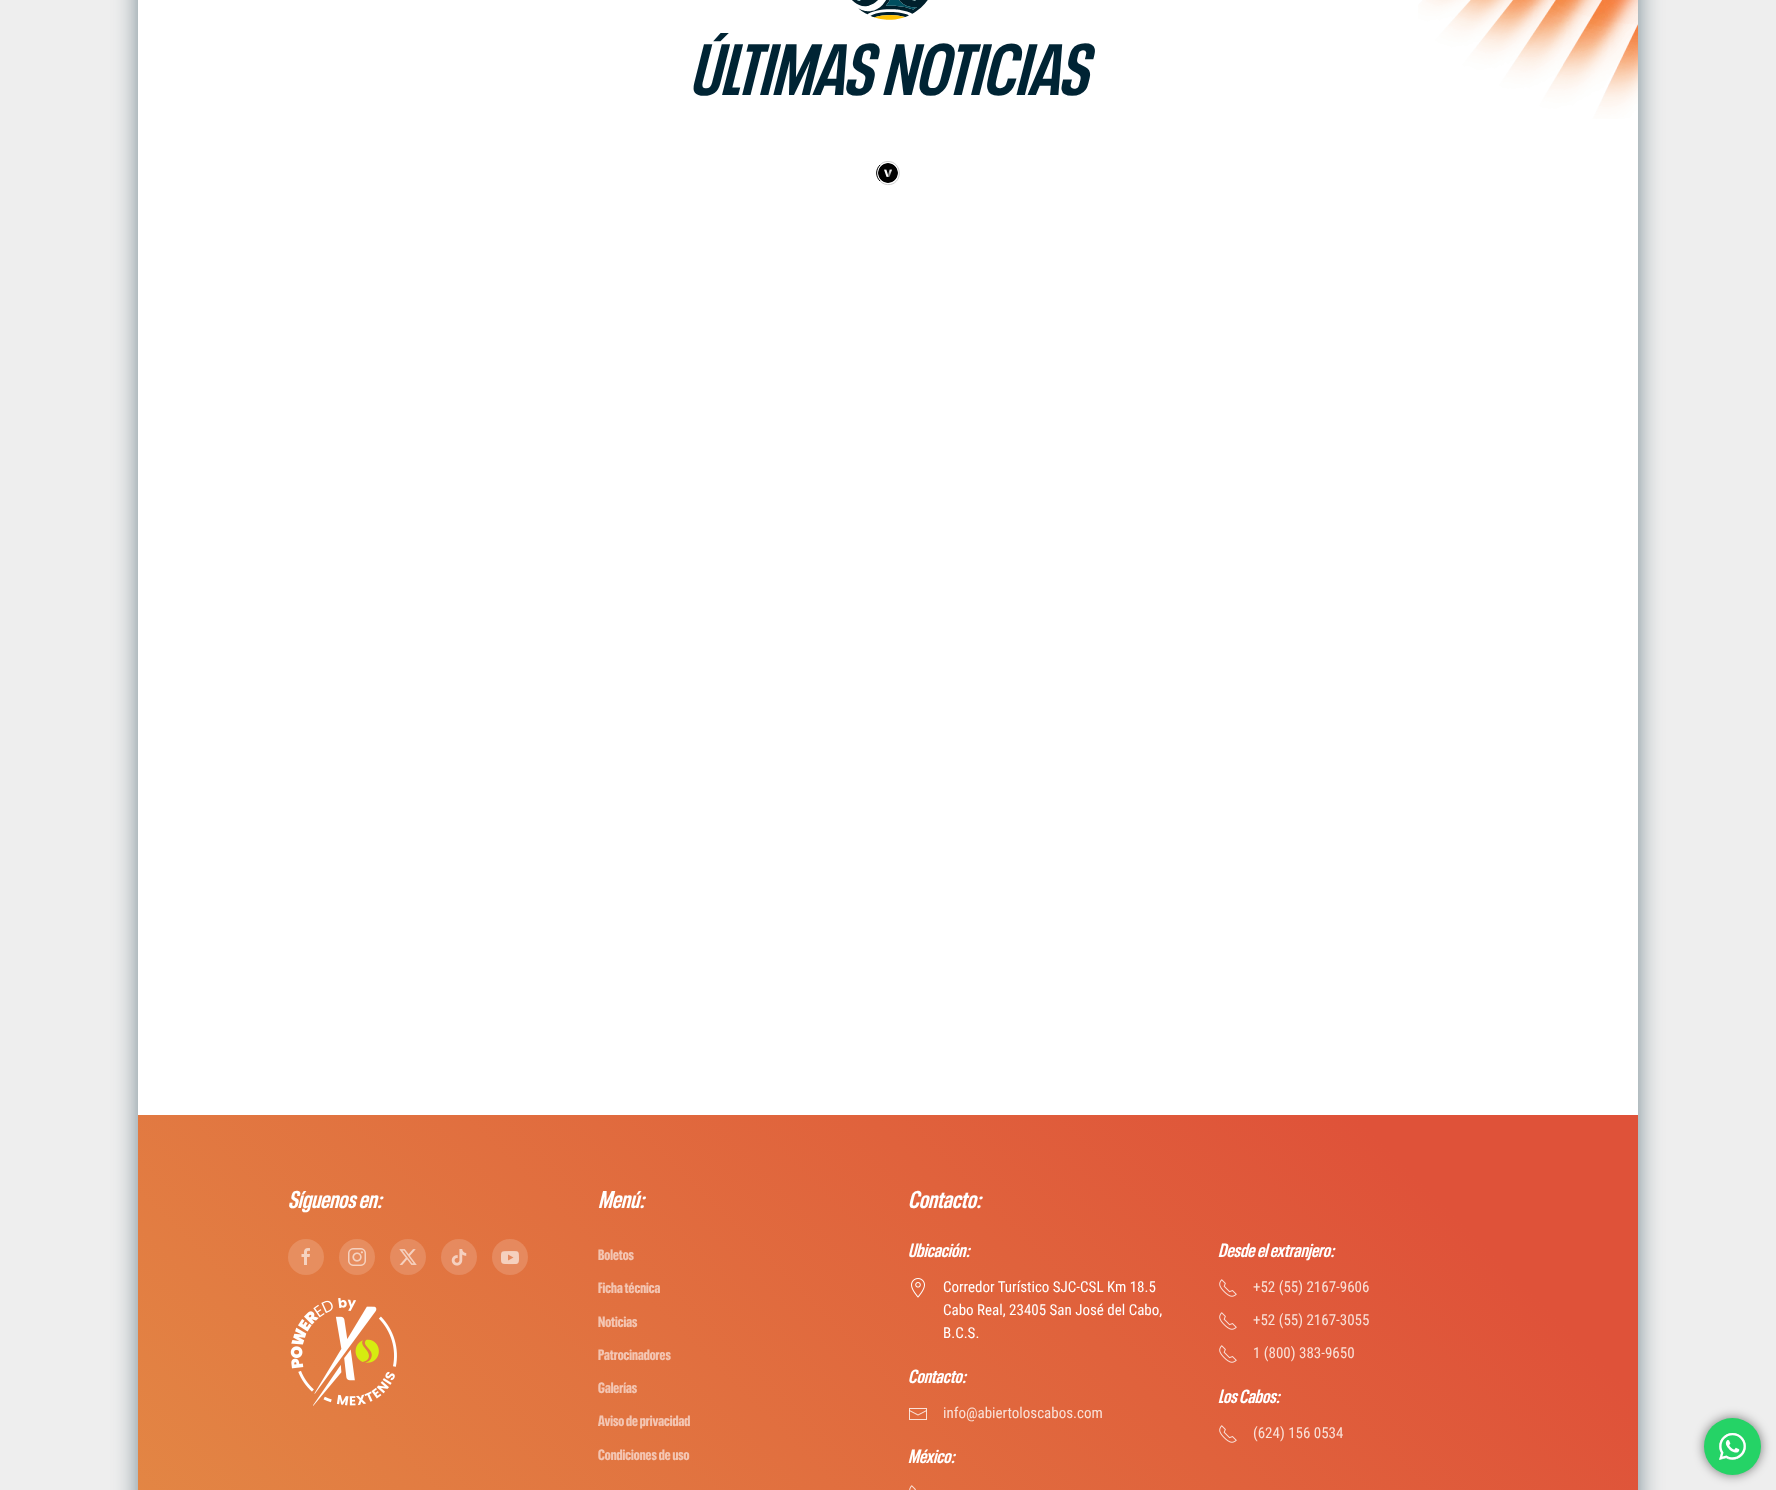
<svg xmlns="http://www.w3.org/2000/svg" width="1776" height="1490" viewBox="0 0 1776 1490">
  <style>
    .t1 { font: italic bold 72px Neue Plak; fill: #002434; }
    .t2 { font: italic bold 24px Neue Plak; fill: #fff; }
    .t3 { font: 900 15px Neue Plak; fill: #f3c5b2; }
    .t4 { font: italic bold 19px Neue Plak; fill: #fff; }
    .t5 { font: 15px Roboto Condensed; fill: #fff; }
    .t6 { font: 15px Roboto Condensed; fill: #f9e1d8; }
  </style>
  <defs>
    <linearGradient id="g1" gradientUnits="userSpaceOnUse" x1="72" y1="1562" x2="1705" y2="-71"><stop offset="0" stop-color="#e38a45"/><stop offset="0.38" stop-color="#e0623c"/><stop offset="0.53" stop-color="#df5239"/></linearGradient>
  </defs>
  <rect width="100%" height="100%" fill="#eee"/>
  <rect x="138" y="-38" width="1500" height="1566" fill="#062a3985" filter="blur(12.5px)"/>
  <rect x="138" y="0" width="1500" height="1115" fill="#fff"/>
  <image x="1418" y="0" width="220" height="119" href="images/1.png"/>
  <image x="852" y="0" width="76" height="20" href="images/2.png"/>
  <text x="689" y="95" class="t1">ÚLTIMAS NOTICIAS</text>
  <image x="878" y="163" width="20" height="20" href="images/3.png"/>
  <path d="M880 165C882 162.5 885 161.5 888 161.5C901.5 161.5 903.5 181.5 890.5 184.5C886.5 185 882.5 184 880 181" fill="none" stroke="#ccc"/>
  <path d="M880 181C875.5 176.5 875.5 169.5 880 165" fill="none" stroke="#000"/>
  <rect x="138" y="1115" width="1500" height="375" fill="url(#g1)"/>
  <text x="288" y="1208" class="t2">Síguenos en:</text>
  <circle cx="306" cy="1257" r="18" fill="#e78e5f"/>
  <image x="301" y="1248" width="9" height="17" href="images/4.png"/>
  <circle cx="357" cy="1257" r="18" fill="#e78d5f"/>
  <image x="348" y="1248" width="18" height="18" href="images/5.png"/>
  <circle cx="408" cy="1257" r="18" fill="#e68b5f"/>
  <image x="399" y="1249" width="18" height="16" href="images/6.png"/>
  <circle cx="459" cy="1257" r="18" fill="#e68a5f"/>
  <image x="451" y="1249" width="16" height="17" href="images/7.png"/>
  <circle cx="510" cy="1257" r="18" fill="#e6895e"/>
  <image x="501" y="1251" width="18" height="14" href="images/8.png"/>
  <image x="290" y="1297" width="107" height="109" href="images/9.png"/>
  <text x="598" y="1208" class="t2">Menú:</text>
  <text x="598" y="1260" class="t3">Boletos</text>
  <text x="598" y="1293" class="t3">Ficha técnica</text>
  <text x="598" y="1327" class="t3">Noticias</text>
  <text x="598" y="1360" class="t3">Patrocinadores</text>
  <text x="598" y="1393" class="t3">Galerías</text>
  <text x="598" y="1426" class="t3">Aviso de privacidad</text>
  <text x="598" y="1460" class="t3">Condiciones de uso</text>
  <text x="908" y="1208" class="t2">Contacto:</text>
  <text x="908" y="1257" class="t4">Ubicación:</text>
  <image x="911" y="1278" width="14" height="20" href="images/10.png"/>
  <text x="943" y="1292" class="t5">Corredor Turístico SJC-CSL Km 18.5</text>
  <text x="943" y="1315" class="t5">Cabo Real, 23405 San José del Cabo,</text>
  <text x="943" y="1338" class="t5">B.C.S.</text>
  <text x="908" y="1383" class="t4">Contacto:</text>
  <image x="909" y="1408" width="18" height="12" href="images/11.png"/>
  <text x="943" y="1418" class="t6">info@abiertoloscabos.com</text>
  <text x="908" y="1463" class="t4">México:</text>
  <image x="909" y="1485" width="7" height="5" href="images/12.png"/>
  <text x="1218" y="1257" class="t4">Desde el extranjero:</text>
  <image x="1219" y="1279" width="18" height="18" href="images/13.png"/>
  <text x="1253" y="1292" class="t6">+52 (55) 2167-9606</text>
  <image x="1219" y="1312" width="18" height="18" href="images/14.png"/>
  <text x="1253" y="1325" class="t6">+52 (55) 2167-3055</text>
  <image x="1219" y="1345" width="18" height="18" href="images/15.png"/>
  <text x="1253" y="1358" class="t6">1 (800) 383-9650</text>
  <text x="1218" y="1403" class="t4">Los Cabos:</text>
  <image x="1219" y="1425" width="18" height="18" href="images/16.png"/>
  <text x="1253" y="1438" class="t6">(624) 156 0534</text>
  <rect x="1704" y="1418" width="57" height="57" rx="28.5" fill="#00000080" filter="blur(5.5px)"/>
  <circle cx="1732.5" cy="1446.5" r="28.5" fill="#25d366"/>
  <image x="1719" y="1433" width="27" height="27" href="images/17.png"/>
</svg>
